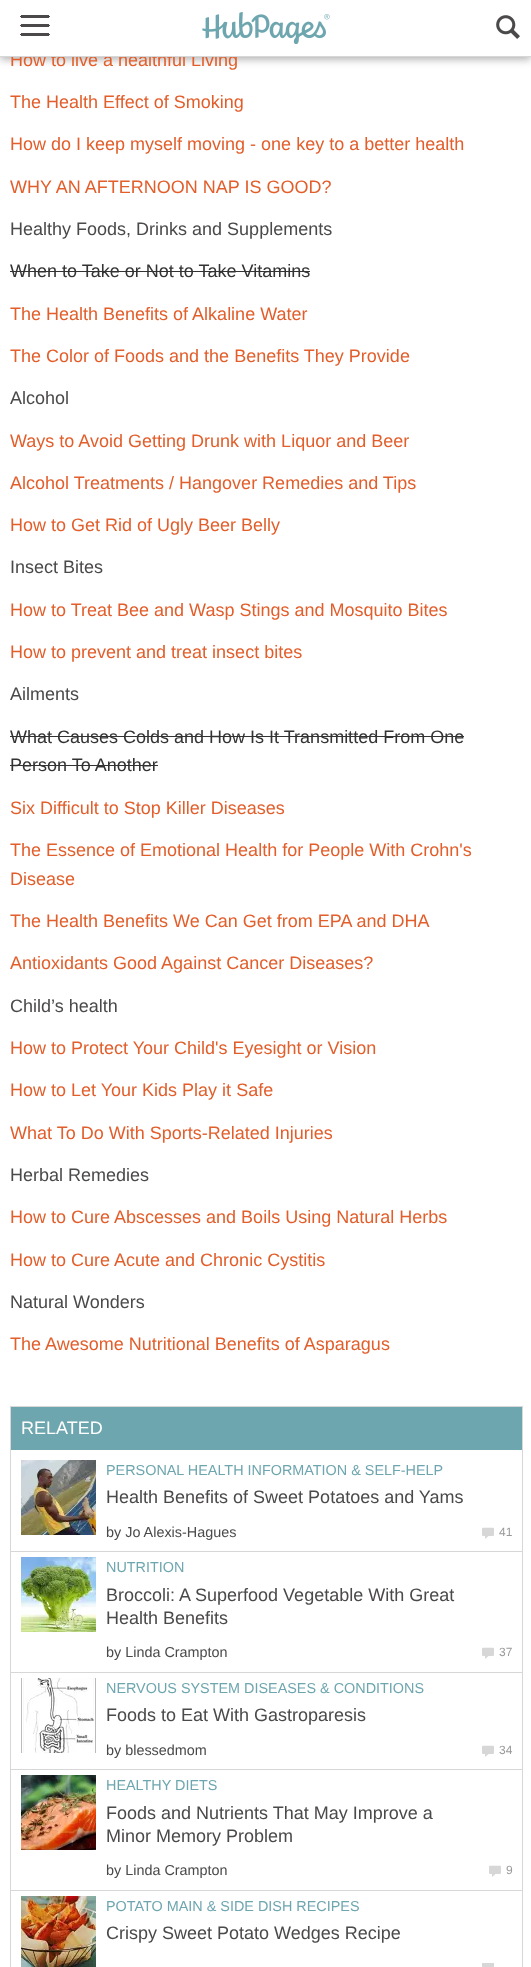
<svg xmlns="http://www.w3.org/2000/svg" width="531" height="1967" viewBox="0 0 531 1967">
  <style>
    .t1 { font: 18px Liberation Sans; fill: #e25e2b; }
    .t2 { font: 18px Liberation Sans; fill: #4b4949; }
    .t3 { font: 18px Liberation Sans; fill: #333; }
    .t4 { font: 18px Liberation Sans; fill: #fff; }
    .t5 { font: 14.4px Liberation Sans; fill: #6ea6af; }
    .t6 { font: 14.4px Liberation Sans; fill: #4b4949; }
    .t7 { font: 12px Liberation Sans; fill: #999; }
  </style>
  <rect width="100%" height="100%" fill="#fff"/>
  <rect x="0" y="2" width="531" height="57" fill="#aaa" filter="blur(4px)"/>
  <text x="10" y="66" class="t1">How to live a healthful Living</text>
  <rect x="0" y="0" width="531" height="56" fill="#fff"/>
  <rect x="0" y="56" width="531" height="1" fill="#d7d7d7"/>
  <rect x="47" y="16" width="3" height="1" fill="#4b4949"/>
  <rect x="21" y="15" width="28" height="3" fill="#4b4949"/>
  <rect x="20" y="16" width="3" height="1" fill="#4b4949"/>
  <rect x="47" y="25" width="3" height="1" fill="#4b4949"/>
  <rect x="21" y="24" width="28" height="3" fill="#4b4949"/>
  <rect x="20" y="25" width="3" height="1" fill="#4b4949"/>
  <rect x="47" y="34" width="3" height="1" fill="#4b4949"/>
  <rect x="21" y="33" width="28" height="3" fill="#4b4949"/>
  <rect x="20" y="34" width="3" height="1" fill="#4b4949"/>
  <image x="202" y="12" width="128" height="32" href="images/1.png"/>
  <image x="496" y="15" width="24" height="24" href="images/2.png"/>
  <text x="10" y="108" class="t1">The Health Effect of Smoking</text>
  <text x="10" y="150" class="t1">How do I keep myself moving - one key to a better health</text>
  <text x="10" y="193" class="t1">WHY AN AFTERNOON NAP IS GOOD?</text>
  <text x="10" y="235" class="t2">Healthy Foods, Drinks and Supplements</text>
  <text x="10" y="277" class="t3">When to Take or Not to Take Vitamins</text>
  <rect x="10" y="271" width="300" height="1" fill="#333"/>
  <text x="10" y="320" class="t1">The Health Benefits of Alkaline Water</text>
  <text x="10" y="362" class="t1">The Color of Foods and the Benefits They Provide</text>
  <text x="10" y="404" class="t2">Alcohol</text>
  <text x="10" y="447" class="t1">Ways to Avoid Getting Drunk with Liquor and Beer</text>
  <text x="10" y="489" class="t1">Alcohol Treatments / Hangover Remedies and Tips</text>
  <text x="10" y="531" class="t1">How to Get Rid of Ugly Beer Belly</text>
  <text x="10" y="573" class="t2">Insect Bites</text>
  <text x="10" y="616" class="t1">How to Treat Bee and Wasp Stings and Mosquito Bites</text>
  <text x="10" y="658" class="t1">How to prevent and treat insect bites</text>
  <text x="10" y="700" class="t2">Ailments</text>
  <text x="10" y="743" class="t3">What Causes Colds and How Is It Transmitted From One</text>
  <rect x="10" y="736" width="454" height="1" fill="#333"/>
  <text x="10" y="771" class="t3">Person To Another</text>
  <rect x="10" y="765" width="148" height="1" fill="#333"/>
  <text x="10" y="814" class="t1">Six Difficult to Stop Killer Diseases</text>
  <text x="10" y="856" class="t1">The Essence of Emotional Health for People With Crohn's</text>
  <text x="10" y="885" class="t1">Disease</text>
  <text x="10" y="927" class="t1">The Health Benefits We Can Get from EPA and DHA</text>
  <text x="10" y="969" class="t1">Antioxidants Good Against Cancer Diseases?</text>
  <text x="10" y="1012" class="t2">Child’s health</text>
  <text x="10" y="1054" class="t1">How to Protect Your Child's Eyesight or Vision</text>
  <text x="10" y="1096" class="t1">How to Let Your Kids Play it Safe</text>
  <text x="10" y="1139" class="t1">What To Do With Sports-Related Injuries</text>
  <text x="10" y="1181" class="t2">Herbal Remedies</text>
  <text x="10" y="1223" class="t1">How to Cure Abscesses and Boils Using Natural Herbs</text>
  <text x="10" y="1266" class="t1">How to Cure Acute and Chronic Cystitis</text>
  <text x="10" y="1308" class="t2">Natural Wonders</text>
  <text x="10" y="1350" class="t1">The Awesome Nutritional Benefits of Asparagus</text>
  <rect x="10.5" y="1406.5" width="512" height="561" fill="none" stroke="#d7d7d7"/>
  <rect x="11" y="1407" width="511" height="43" fill="#6ea6af"/>
  <text x="21" y="1434" class="t4">RELATED</text>
  <rect x="11" y="1551" width="511" height="1" fill="#d7d7d7"/>
  <image x="21" y="1460" width="75" height="75" href="images/3.png"/>
  <text x="106" y="1475" class="t5">PERSONAL HEALTH INFORMATION &amp; SELF-HELP</text>
  <text x="106" y="1503" class="t2">Health Benefits of Sweet Potatoes and Yams</text>
  <text x="106" y="1537" class="t6">by Jo Alexis-Hagues</text>
  <image x="482" y="1527" width="12" height="12" href="images/4.png"/>
  <text x="499" y="1536" class="t7">41</text>
  <rect x="11" y="1672" width="511" height="1" fill="#d7d7d7"/>
  <image x="21" y="1557" width="75" height="75" href="images/5.png"/>
  <text x="106" y="1572" class="t5">NUTRITION</text>
  <text x="106" y="1601" class="t2">Broccoli: A Superfood Vegetable With Great</text>
  <text x="106" y="1624" class="t2">Health Benefits</text>
  <text x="106" y="1657" class="t6">by Linda Crampton</text>
  <image x="482" y="1647" width="12" height="12" href="images/4.png"/>
  <text x="499" y="1656" class="t7">37</text>
  <rect x="11" y="1769" width="511" height="1" fill="#d7d7d7"/>
  <image x="21" y="1678" width="75" height="75" href="images/6.png"/>
  <text x="106" y="1693" class="t5">NERVOUS SYSTEM DISEASES &amp; CONDITIONS</text>
  <text x="106" y="1721" class="t2">Foods to Eat With Gastroparesis</text>
  <text x="106" y="1755" class="t6">by blessedmom</text>
  <image x="482" y="1745" width="12" height="12" href="images/4.png"/>
  <text x="499" y="1754" class="t7">34</text>
  <rect x="11" y="1890" width="511" height="1" fill="#d7d7d7"/>
  <image x="21" y="1775" width="75" height="75" href="images/7.png"/>
  <text x="106" y="1790" class="t5">HEALTHY DIETS</text>
  <text x="106" y="1819" class="t2">Foods and Nutrients That May Improve a</text>
  <text x="106" y="1842" class="t2">Minor Memory Problem</text>
  <text x="106" y="1875" class="t6">by Linda Crampton</text>
  <image x="489" y="1865" width="12" height="12" href="images/4.png"/>
  <text x="506" y="1874" class="t7">9</text>
  <image x="21" y="1896" width="75" height="71" href="images/8.png"/>
  <text x="106" y="1911" class="t5">POTATO MAIN &amp; SIDE DISH RECIPES</text>
  <text x="106" y="1939" class="t2">Crispy Sweet Potato Wedges Recipe</text>
  <rect x="482" y="1963" width="12" height="4" fill="#d7d7d7"/>
</svg>
